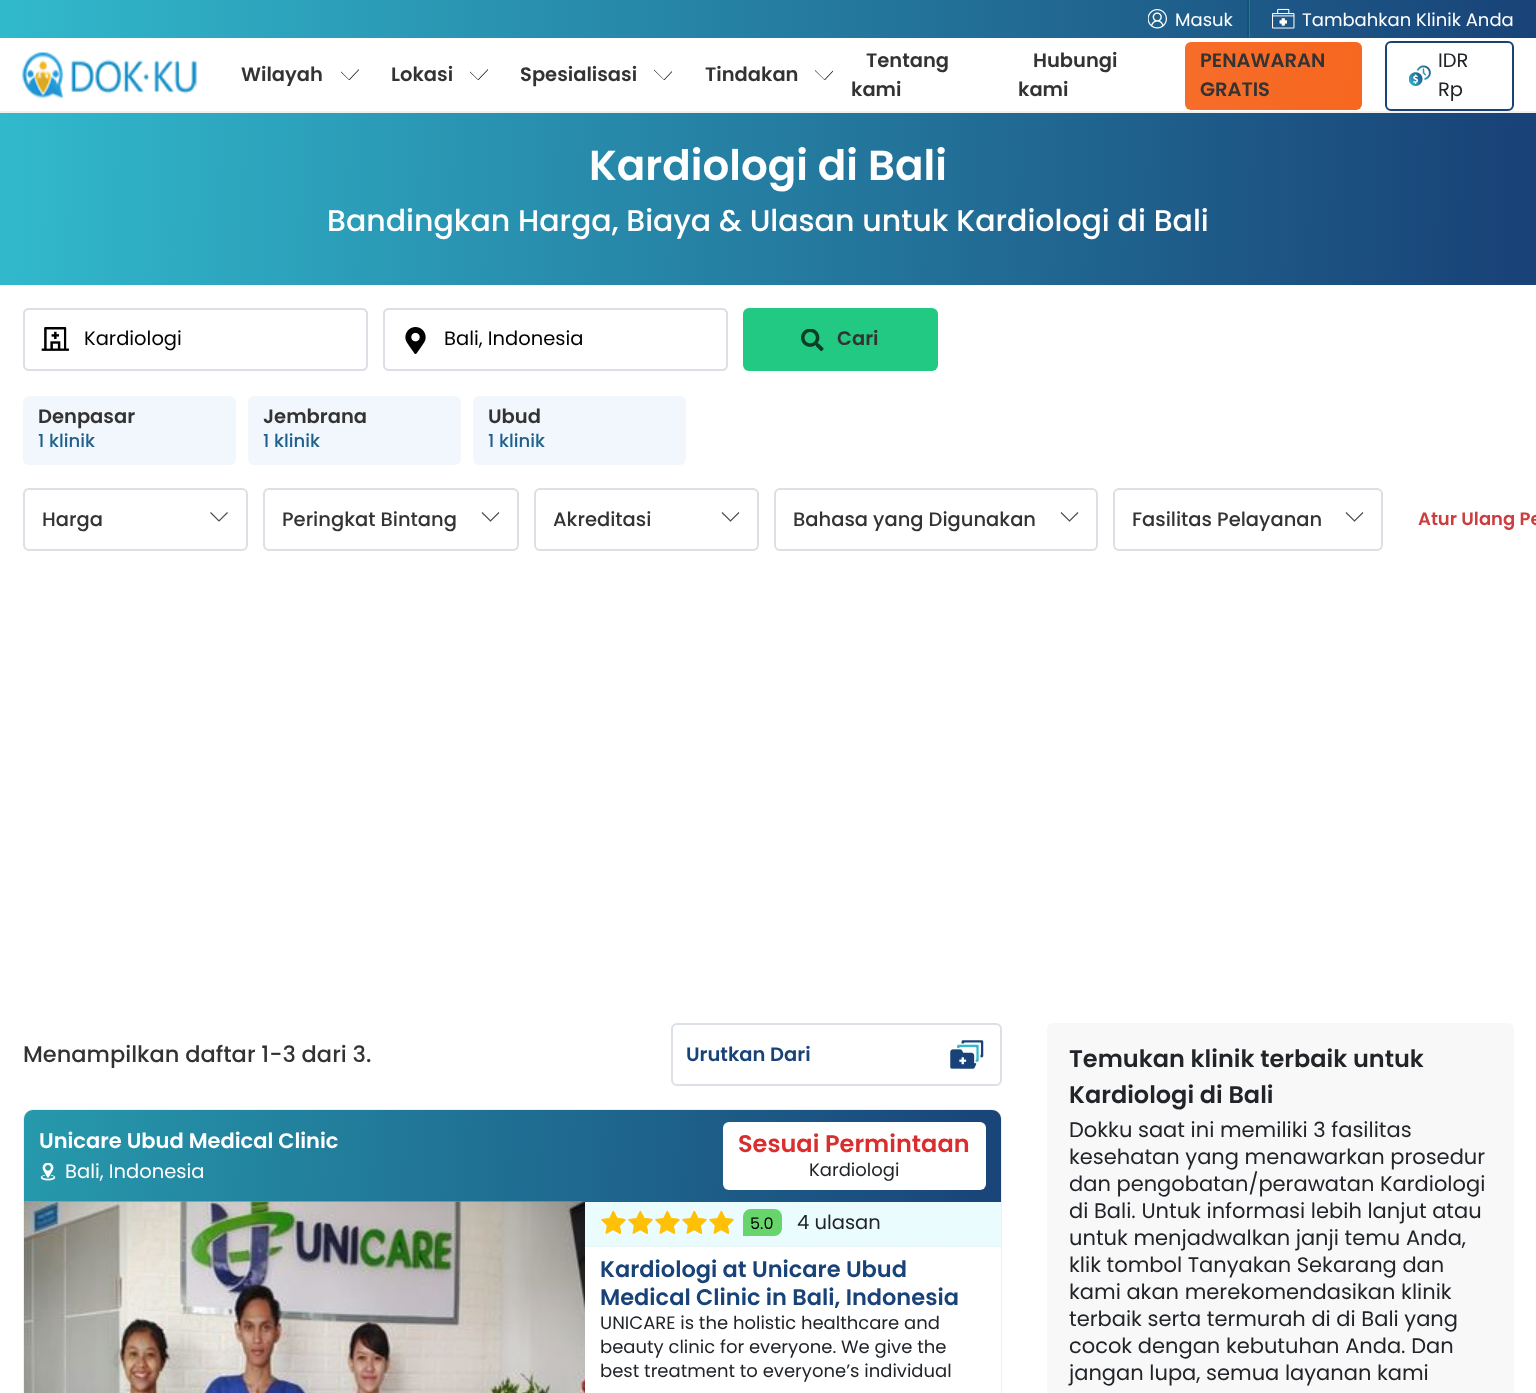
<svg xmlns="http://www.w3.org/2000/svg" width="1536" height="1393" viewBox="0 0 1536 1393">
  <style>
    .t1 { font: 18px Poppins; fill: #fff; }
    .t2 { font: 600 19.5px Poppins; fill: #333; }
    .t3 { font: 19.5px Poppins; fill: #212529; }
    .t4 { font: 600 42px Poppins; fill: #fff; }
    .t5 { font: 500 30px Poppins; fill: #fff; }
    .t6 { font: 19.5px Poppins; fill: #000; }
    .t7 { font: 500 18px Poppins; fill: #1f608d; }
    .t8 { font: 500 19.5px Poppins; fill: #333; }
    .t9 { font: 600 18px Poppins; fill: #cd3d3e; }
    .t10 { font: 500 22.5px Poppins; fill: #333; }
    .t11 { font: 600 19.5px Poppins; fill: #194378; }
    .t12 { font: 600 21px Poppins; fill: #fff; }
    .t13 { font: 19.5px Poppins; fill: #fff; }
    .t14 { font: 600 24px Poppins; fill: #d92d2e; }
    .t15 { font: 18px Poppins; fill: #212529; }
    .t16 { font: 16px Poppins; fill: #000; }
    .t17 { font: 600 22.5px Poppins; fill: #194378; }
    .t18 { font: 600 24px Poppins; fill: #212529; }
    .t19 { font: 21px Poppins; fill: #212529; }
  </style>
  <defs>
    <linearGradient id="g1" gradientUnits="userSpaceOnUse" x1="0" y1="19" x2="1536" y2="19"><stop offset="0" stop-color="#31b9cc"/><stop offset="1" stop-color="#194378"/></linearGradient>
    <clipPath id="clip1"><rect x="341" y="62" width="18" height="18"/></clipPath>
    <clipPath id="clip2"><rect x="470" y="62" width="18" height="18"/></clipPath>
    <clipPath id="clip3"><rect x="654" y="62" width="18" height="18"/></clipPath>
    <clipPath id="clip4"><rect x="815" y="62" width="18" height="18"/></clipPath>
    <linearGradient id="g2" gradientUnits="userSpaceOnUse" x1="1110" y1="59" x2="1429" y2="91"><stop offset="0" stop-color="#f6702e"/><stop offset="1" stop-color="#f7641b"/></linearGradient>
    <linearGradient id="g3" gradientUnits="userSpaceOnUse" x1="-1.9" y1="175" x2="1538" y2="222"><stop offset="0" stop-color="#31b9cc"/><stop offset="0.98" stop-color="#194378"/></linearGradient>
    <linearGradient id="g4" gradientUnits="userSpaceOnUse" x1="-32" y1="1123" x2="1009" y2="1185"><stop offset="0" stop-color="#279eaf"/><stop offset="1" stop-color="#194378"/></linearGradient>
  </defs>
  <rect width="100%" height="100%" fill="#fff"/>
  <rect x="0" y="111" width="1536" height="2" fill="#f1f1f1"/>
  <rect x="0" y="0" width="1536" height="38" fill="url(#g1)"/>
  <rect x="1249" y="0" width="1" height="38" fill="#217ca5"/>
  <image x="1148" y="9" width="19" height="20" href="images/1.png"/>
  <text x="1175" y="26" class="t1">Masuk</text>
  <rect x="1247" y="0" width="2" height="38" fill="#0e5676"/>
  <image x="1272" y="8" width="23" height="21" href="images/2.png"/>
  <text x="1302" y="26" class="t1">Tambahkan Klinik Anda</text>
  <image x="22" y="52" width="175" height="46" href="images/3.png"/>
  <text x="241" y="81" class="t2">Wilayah</text>
  <g clip-path="url(#clip1)">
    <path d="M365 62.5L349 79.5L332.5 63C332 63 332 63.5 332 63.5L349 80H349.5L365.5 63C366 62.5 365.5 62.5 365 62.5Z" fill="#000"/>
  </g>
  <text x="391" y="81" class="t2">Lokasi</text>
  <g clip-path="url(#clip2)">
    <path d="M494 62.5L478 79.5L461.5 63C461 63 461 63.5 461 63.5L478 80H478.5L494.5 63C495 62.5 494.5 62.5 494 62.5Z" fill="#000"/>
  </g>
  <text x="520" y="81" class="t2">Spesialisasi</text>
  <g clip-path="url(#clip3)">
    <path d="M680 62.5L664 79.5L647.5 63C647 63 647 63.5 647 63.5L664 80H664.5L680.5 63C681 62.5 680.5 62.5 680 62.5Z" fill="#000"/>
  </g>
  <text x="705" y="81" class="t2">Tindakan</text>
  <g clip-path="url(#clip4)">
    <path d="M840.5 62.5L824.5 79.5L808 63C807.5 63 807.5 63.5 807.5 63.5L824.5 80H825L841 63C841.5 62.5 841 62.5 840.5 62.5Z" fill="#000"/>
  </g>
  <text x="866" y="67" class="t2">Tentang</text>
  <text x="851" y="96" class="t2">kami</text>
  <text x="1033" y="67" class="t2">Hubungi</text>
  <text x="1018" y="96" class="t2">kami</text>
  <rect x="1185" y="42" width="177" height="68" rx="6" fill="url(#g2)"/>
  <text x="1200" y="67" class="t2">PENAWARAN</text>
  <text x="1200" y="96" class="t2">GRATIS</text>
  <rect x="1386" y="42" width="127" height="68" rx="5" fill="none" stroke="#194378" stroke-width="2"/>
  <text x="1438" y="67" class="t3">IDR</text>
  <image x="1409" y="65" width="22" height="21" href="images/4.png"/>
  <text x="1438" y="96" class="t3">Rp</text>
  <rect x="0" y="113" width="1536" height="172" fill="url(#g3)"/>
  <text x="589" y="180" class="t4">Kardiologi di Bali</text>
  <text x="327" y="231" class="t5">Bandingkan Harga, Biaya &amp; Ulasan untuk Kardiologi di Bali</text>
  <rect x="24" y="309" width="343" height="61" rx="5" fill="none" stroke="#dcdfe6" stroke-width="2"/>
  <rect x="24" y="309" width="343" height="61" rx="5" fill="#fff" stroke="#dcdfe6" stroke-width="2"/>
  <image x="41" y="327" width="28" height="24" href="images/5.png"/>
  <text x="84" y="345" class="t6">Kardiologi</text>
  <rect x="384" y="309" width="343" height="61" rx="5" fill="none" stroke="#dcdfe6" stroke-width="2"/>
  <rect x="384" y="309" width="343" height="61" rx="5" fill="#fff" stroke="#dcdfe6" stroke-width="2"/>
  <image x="405" y="327" width="21" height="27" href="images/6.png"/>
  <text x="444" y="345" class="t6">Bali, Indonesia</text>
  <rect x="743" y="308" width="195" height="63" rx="6" fill="#22c982"/>
  <image x="801" y="329" width="23" height="23" href="images/7.png"/>
  <text x="837" y="345" class="t2">Cari</text>
  <rect x="23" y="396" width="213" height="69" rx="6" fill="#f1f7fd"/>
  <text x="38" y="423" class="t2">Denpasar</text>
  <text x="38" y="447" class="t7">1 klinik</text>
  <rect x="248" y="396" width="213" height="69" rx="6" fill="#f1f7fd"/>
  <text x="263" y="423" class="t2">Jembrana</text>
  <text x="263" y="447" class="t7">1 klinik</text>
  <rect x="473" y="396" width="213" height="69" rx="6" fill="#f1f7fd"/>
  <text x="488" y="423" class="t2">Ubud</text>
  <text x="488" y="447" class="t7">1 klinik</text>
  <rect x="24" y="489" width="223" height="61" rx="5" fill="none" stroke="#dcdfe6" stroke-width="2"/>
  <text x="42" y="526" class="t8">Harga</text>
  <path d="M210.5 512.5L219 521L227.5 512.5" fill="none" stroke="#534b4b" stroke-width="1.2"/>
  <rect x="264" y="489" width="254" height="61" rx="5" fill="none" stroke="#dcdfe6" stroke-width="2"/>
  <text x="282" y="526" class="t8">Peringkat Bintang</text>
  <path d="M482 512.5L490.5 521L499 512.5" fill="none" stroke="#534b4b" stroke-width="1.2"/>
  <rect x="535" y="489" width="223" height="61" rx="5" fill="none" stroke="#dcdfe6" stroke-width="2"/>
  <text x="553" y="526" class="t8">Akreditasi</text>
  <path d="M722 512.5L730.5 521L739 512.5" fill="none" stroke="#534b4b" stroke-width="1.2"/>
  <rect x="775" y="489" width="322" height="61" rx="5" fill="none" stroke="#dcdfe6" stroke-width="2"/>
  <text x="793" y="526" class="t8">Bahasa yang Digunakan</text>
  <path d="M1061 512.5L1069.5 521L1078 512.5" fill="none" stroke="#534b4b" stroke-width="1.2"/>
  <rect x="1114" y="489" width="268" height="61" rx="5" fill="none" stroke="#dcdfe6" stroke-width="2"/>
  <text x="1132" y="526" class="t8">Fasilitas Pelayanan</text>
  <path d="M1346 512.5L1354.5 521L1363 512.5" fill="none" stroke="#534b4b" stroke-width="1.2"/>
  <text x="1418" y="525" class="t9">Atur Ulang Pe</text>
  <text x="23" y="1062" class="t10">Menampilkan daftar 1-3 dari 3.</text>
  <image x="950" y="1040" width="34" height="29" href="images/8.png"/>
  <rect x="672" y="1024" width="329" height="61" rx="5" fill="none" stroke="#dcdfe6" stroke-width="2"/>
  <text x="686" y="1061" class="t11">Urutkan Dari</text>
  <rect x="24" y="1110" width="977" height="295" rx="10" fill="none" stroke="#efefef" stroke-width="2"/>
  <path d="M33 1110H992C997 1110 1001 1114 1001 1119V1202H24V1119C24 1114 28 1110 33 1110Z" fill="url(#g4)"/>
  <text x="39" y="1148" class="t12">Unicare Ubud Medical Clinic</text>
  <image x="40" y="1163" width="16" height="18" href="images/9.png"/>
  <text x="65" y="1178" class="t13">Bali, Indonesia</text>
  <rect x="723" y="1122" width="263" height="68" rx="6" fill="#fff"/>
  <text x="738" y="1152" class="t14">Sesuai Permintaan</text>
  <text x="809" y="1176" class="t15">Kardiologi</text>
  <rect x="1000" y="1247" width="1" height="146" fill="#fff"/>
  <image x="24" y="1201" width="561" height="1" href="images/10.png"/>
  <image x="24" y="1201" width="561" height="192" href="images/11.png"/>
  <rect x="585" y="1202" width="416" height="45" fill="#ebfcff"/>
  <path d="M585 1246H1000.5" fill="none" stroke="#efefef" stroke-width="1.5" stroke-dasharray="1.5 1.5"/>
  <image x="601" y="1211" width="133" height="23" href="images/13.png"/>
  <image x="601" y="1210" width="133" height="24" href="images/12.png"/>
  <path d="M751 1209H774C778.5 1209 782 1212.5 782 1217V1228C782 1232.5 778.5 1236 774 1236H743V1217C743 1212.5 746.5 1209 751 1209Z" fill="#67d56b"/>
  <text x="750" y="1229" class="t16">5.0</text>
  <text x="797" y="1229" class="t3">4 ulasan</text>
  <text x="600" y="1277" class="t17">Kardiologi at Unicare Ubud</text>
  <text x="600" y="1305" class="t17">Medical Clinic in Bali, Indonesia</text>
  <text x="600" y="1329" class="t15">UNICARE is the holistic healthcare and</text>
  <text x="600" y="1353" class="t15">beauty clinic for everyone. We give the</text>
  <text x="600" y="1377" class="t15">best treatment to everyone’s individual</text>
  <rect x="1047" y="1023" width="467" height="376" rx="6" fill="#f8f8f8"/>
  <text x="1069" y="1067" class="t18">Temukan klinik terbaik untuk</text>
  <text x="1069" y="1103" class="t18">Kardiologi di Bali</text>
  <text x="1069" y="1137" class="t19">Dokku saat ini memiliki 3 fasilitas</text>
  <text x="1069" y="1164" class="t19">kesehatan yang menawarkan prosedur</text>
  <text x="1069" y="1191" class="t19">dan pengobatan/perawatan Kardiologi</text>
  <text x="1069" y="1218" class="t19">di Bali. Untuk informasi lebih lanjut atau</text>
  <text x="1069" y="1245" class="t19">untuk menjadwalkan janji temu Anda,</text>
  <text x="1069" y="1272" class="t19">klik tombol Tanyakan Sekarang dan</text>
  <text x="1069" y="1299" class="t19">kami akan merekomendasikan klinik</text>
  <text x="1069" y="1326" class="t19">terbaik serta termurah di di Bali yang</text>
  <text x="1069" y="1353" class="t19">cocok dengan kebutuhan Anda. Dan</text>
  <text x="1069" y="1380" class="t19">jangan lupa, semua layanan kami</text>
</svg>
